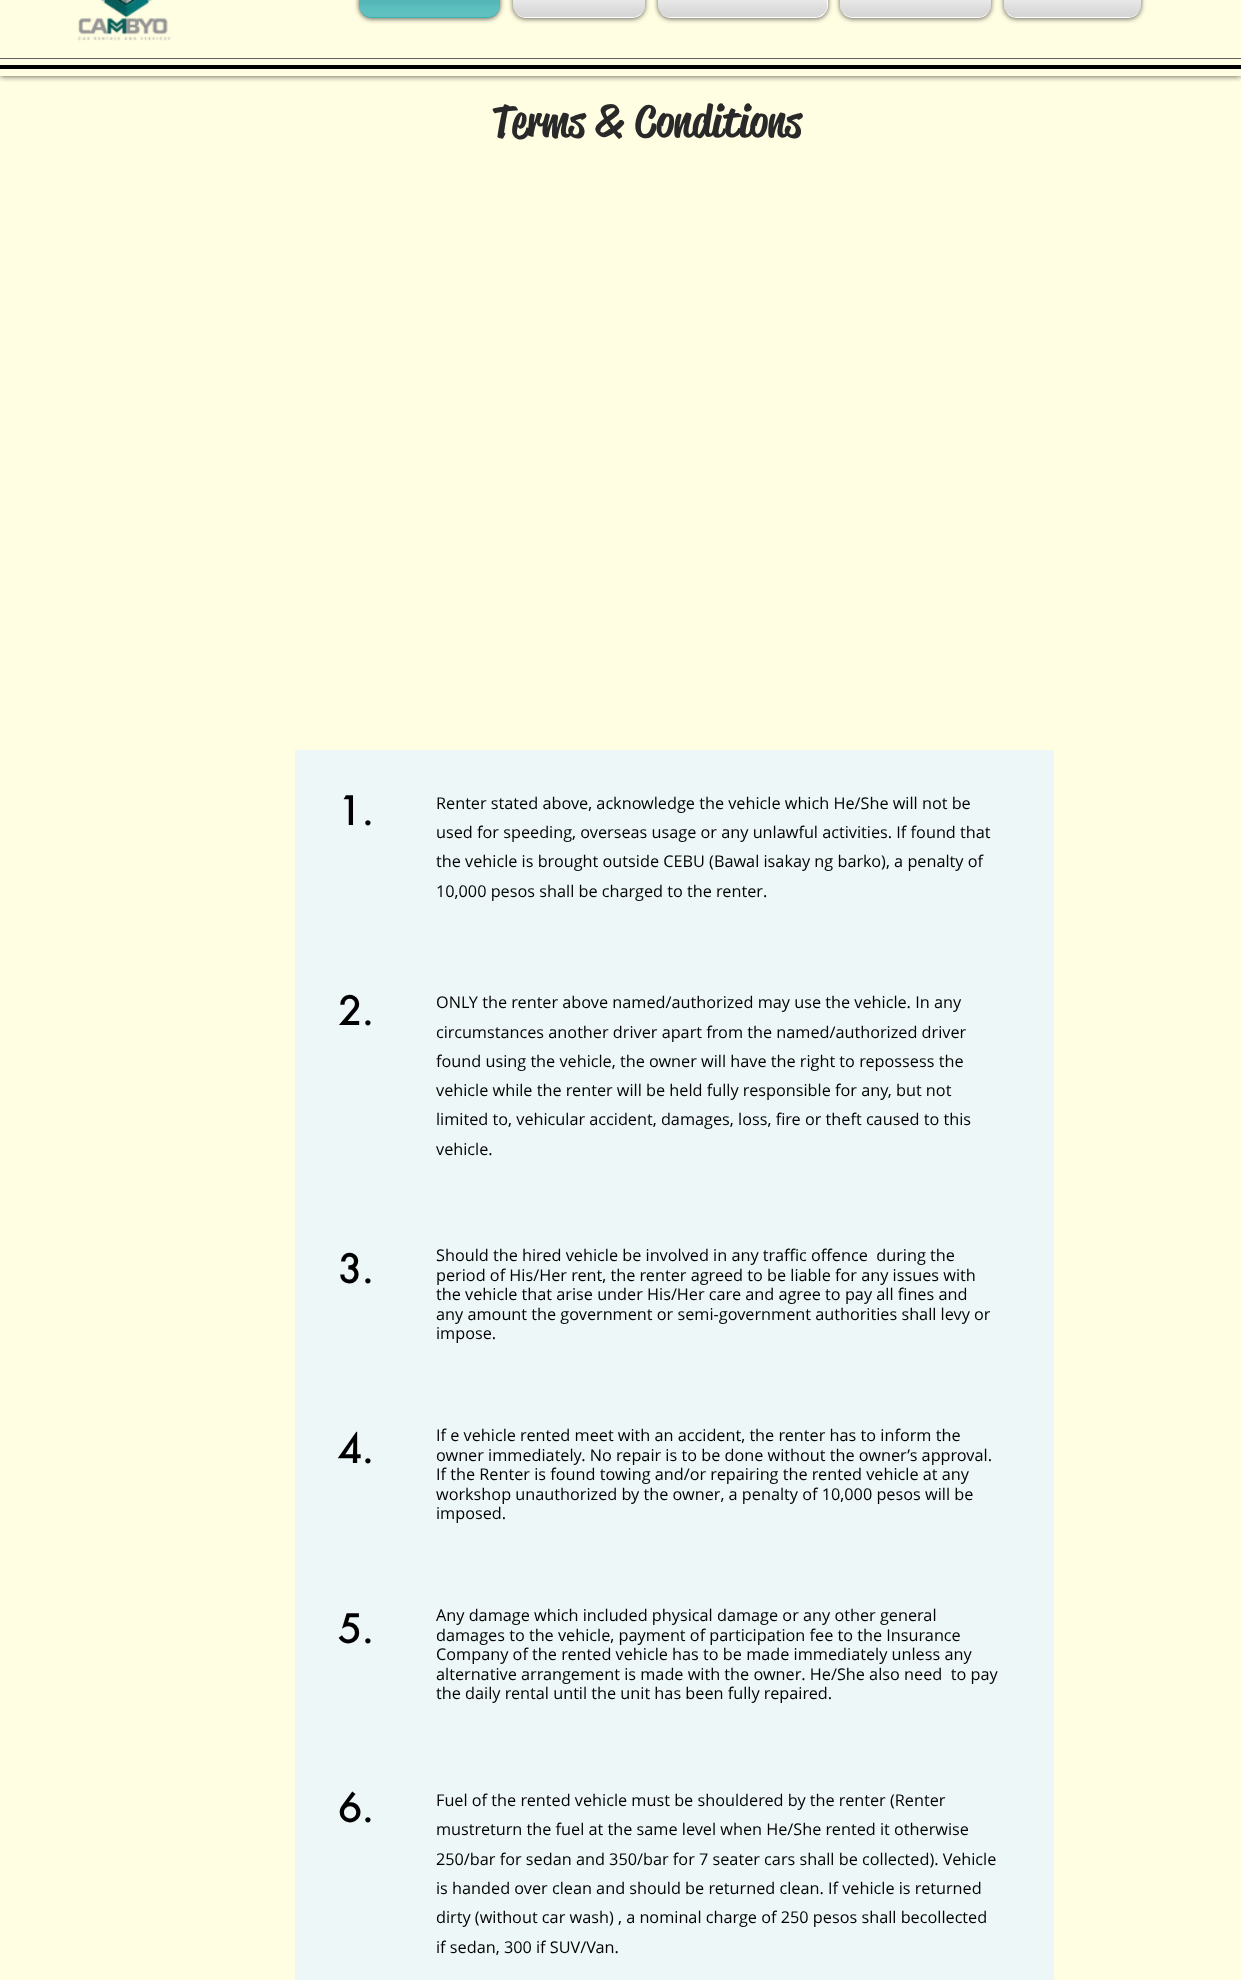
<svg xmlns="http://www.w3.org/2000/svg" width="1241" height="1980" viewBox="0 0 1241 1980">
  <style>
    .t1 { font: 500 43.75px 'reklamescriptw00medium'; fill: #292929; }
    .t2 { font: bold 38px futura; fill: #000; }
    .t3 { font: 16.25px Open Sans; fill: #000; }
  </style>
  <defs>
    <clipPath id="clip1"><rect x="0" y="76" width="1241" height="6"/></clipPath>
  </defs>
  <rect width="100%" height="100%" fill="#fffde2"/>
  <g clip-path="url(#clip1)">
    <rect x="0" y="-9" width="1241" height="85" fill="#000000b3" filter="blur(3px)"/>
  </g>
  <image x="77" y="0" width="94" height="41" href="images/1.png"/>
  <rect x="359" y="-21" width="141" height="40" rx="13" fill="#00000099" filter="blur(2.5px)"/>
  <rect x="359" y="-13" width="141" height="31" rx="13" fill="#3cb2b2"/>
  <rect x="359" y="0" width="141" height="5" fill="#3aabab"/>
  <image x="359" y="0" width="141" height="17" href="images/2.png"/>
  <rect x="513" y="-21" width="132" height="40" rx="13" fill="#00000099" filter="blur(2.5px)"/>
  <rect x="513" y="-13" width="132" height="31" rx="13" fill="#fff"/>
  <image x="513" y="0" width="132" height="17" href="images/3.png"/>
  <rect x="658" y="-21" width="170" height="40" rx="13" fill="#00000099" filter="blur(2.5px)"/>
  <rect x="658" y="-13" width="170" height="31" rx="13" fill="#fff"/>
  <image x="658" y="0" width="169" height="17" href="images/4.png"/>
  <rect x="840" y="-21" width="151" height="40" rx="13" fill="#00000099" filter="blur(2.5px)"/>
  <rect x="840" y="-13" width="151" height="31" rx="13" fill="#fff"/>
  <image x="840" y="0" width="151" height="17" href="images/5.png"/>
  <rect x="1004" y="-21" width="137" height="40" rx="13" fill="#00000099" filter="blur(2.5px)"/>
  <rect x="1004" y="-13" width="137" height="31" rx="13" fill="#fff"/>
  <image x="1004" y="0" width="137" height="17" href="images/6.png"/>
  <rect x="0" y="65" width="1241" height="4" fill="#000"/>
  <rect x="0" y="58" width="1241" height="1" fill="#606060"/>
  <text x="492" y="136" class="t1">Terms &amp; Conditions</text>
  <rect x="295" y="750" width="759" height="1230" fill="#edf7f7"/>
  <text x="338" y="825" class="t2">1.</text>
  <text x="436" y="809" class="t3">Renter stated above, acknowledge the vehicle which He/She will not be</text>
  <text x="436" y="838" class="t3">used for speeding, overseas usage or any unlawful activities. If found that</text>
  <text x="436" y="867" class="t3">the vehicle is brought outside CEBU (Bawal isakay ng barko), a penalty of</text>
  <text x="436" y="897" class="t3">10,000 pesos shall be charged to the renter.</text>
  <text x="338" y="1025" class="t2">2.</text>
  <text x="436" y="1008" class="t3">ONLY the renter above named/authorized may use the vehicle. In any</text>
  <text x="436" y="1038" class="t3">circumstances another driver apart from the named/authorized driver</text>
  <text x="436" y="1067" class="t3">found using the vehicle, the owner will have the right to repossess the</text>
  <text x="436" y="1096" class="t3">vehicle while the renter will be held fully responsible for any, but not</text>
  <text x="436" y="1125" class="t3">limited to, vehicular accident, damages, loss, fire or theft caused to this</text>
  <text x="436" y="1155" class="t3">vehicle.</text>
  <text x="338" y="1283" class="t2">3.</text>
  <text x="436" y="1261" class="t3" xml:space="preserve">Should the hired vehicle be involved in any traffic offence  during the</text>
  <text x="436" y="1281" class="t3">period of His/Her rent, the renter agreed to be liable for any issues with</text>
  <text x="436" y="1300" class="t3">the vehicle that arise under His/Her care and agree to pay all fines and</text>
  <text x="436" y="1320" class="t3">any amount the government or semi-government authorities shall levy or</text>
  <text x="436" y="1339" class="t3">impose.</text>
  <text x="338" y="1463" class="t2">4.</text>
  <text x="436" y="1441" class="t3">If e vehicle rented meet with an accident, the renter has to inform the</text>
  <text x="436" y="1461" class="t3">owner immediately. No repair is to be done without the owner’s approval.</text>
  <text x="436" y="1480" class="t3">If the Renter is found towing and/or repairing the rented vehicle at any</text>
  <text x="436" y="1500" class="t3">workshop unauthorized by the owner, a penalty of 10,000 pesos will be</text>
  <text x="436" y="1519" class="t3">imposed.</text>
  <text x="338" y="1643" class="t2">5.</text>
  <text x="436" y="1621" class="t3">Any damage which included physical damage or any other general</text>
  <text x="436" y="1641" class="t3">damages to the vehicle, payment of participation fee to the Insurance</text>
  <text x="436" y="1660" class="t3">Company of the rented vehicle has to be made immediately unless any</text>
  <text x="436" y="1680" class="t3" xml:space="preserve">alternative arrangement is made with the owner. He/She also need  to pay</text>
  <text x="436" y="1699" class="t3">the daily rental until the unit has been fully repaired.</text>
  <text x="338" y="1822" class="t2">6.</text>
  <text x="436" y="1806" class="t3">Fuel of the rented vehicle must be shouldered by the renter (Renter</text>
  <text x="436" y="1835" class="t3">mustreturn the fuel at the same level when He/She rented it otherwise</text>
  <text x="436" y="1865" class="t3">250/bar for sedan and 350/bar for 7 seater cars shall be collected). Vehicle</text>
  <text x="436" y="1894" class="t3">is handed over clean and should be returned clean. If vehicle is returned</text>
  <text x="436" y="1923" class="t3">dirty (without car wash) , a nominal charge of 250 pesos shall becollected</text>
  <text x="436" y="1953" class="t3">if sedan, 300 if SUV/Van.</text>
</svg>
